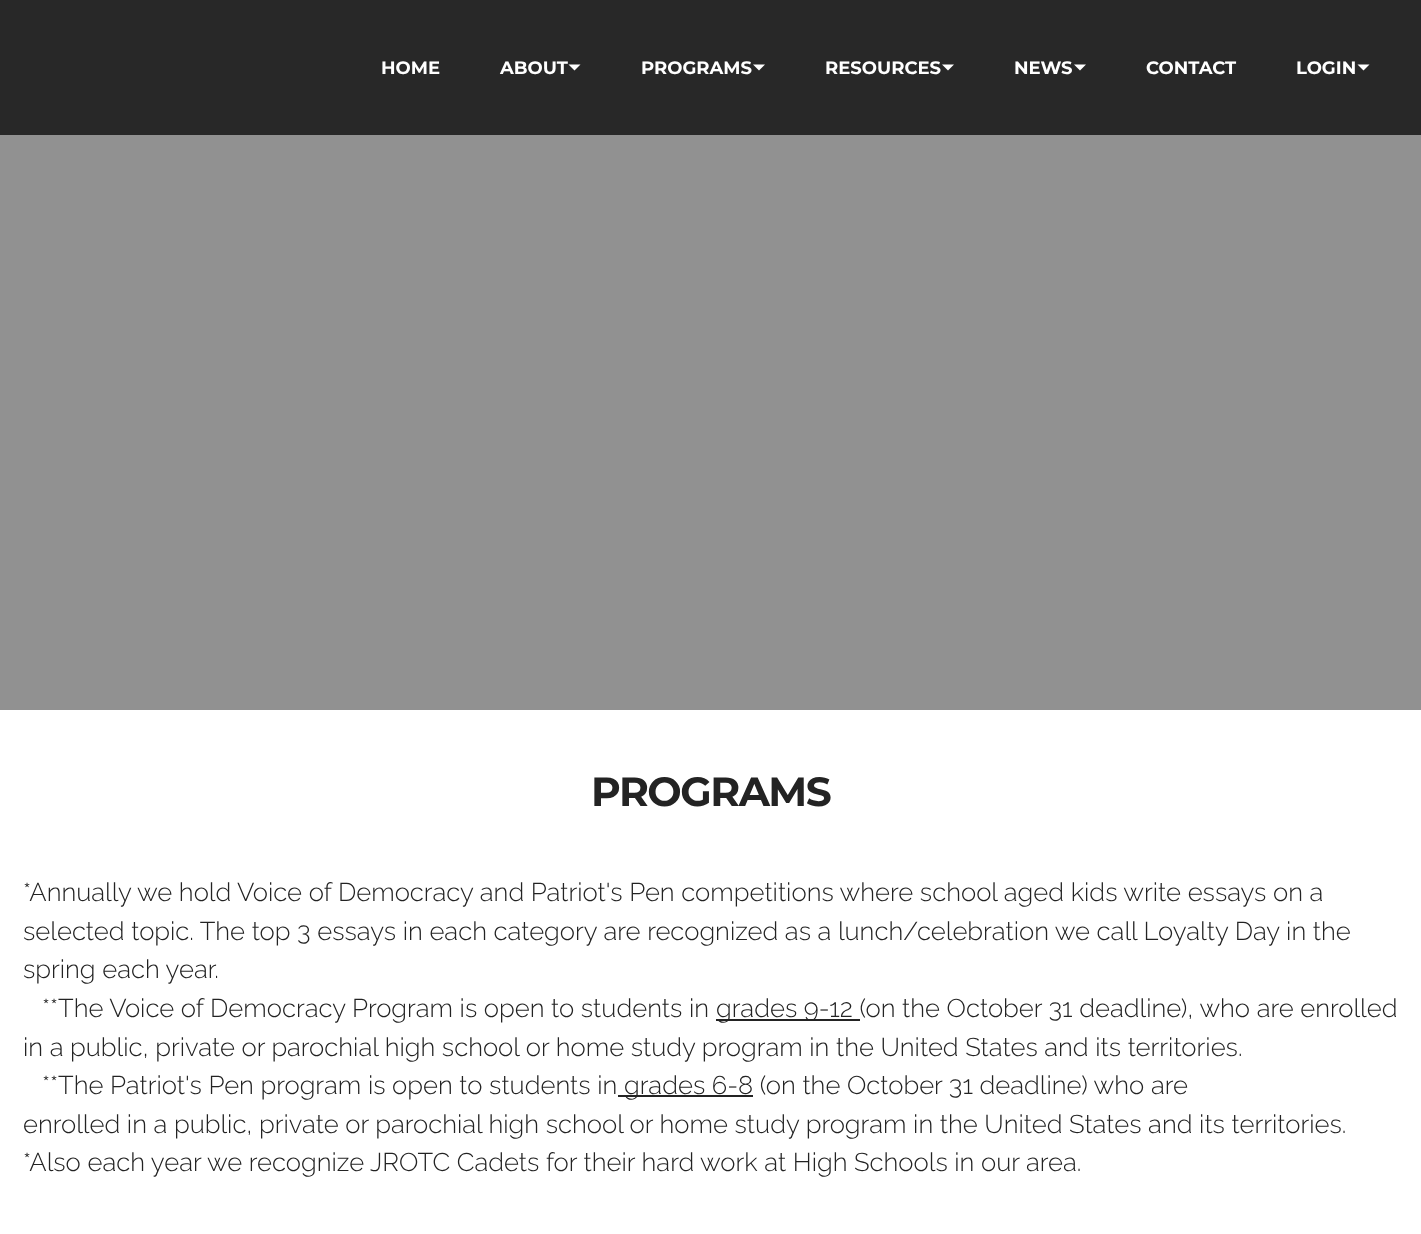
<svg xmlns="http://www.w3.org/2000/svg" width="1421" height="1234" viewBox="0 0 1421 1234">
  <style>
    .t1 { font: bold 18px Montserrat; fill: #fff; }
    .t2 { font: bold 40.75px Montserrat; letter-spacing: -1.5px; fill: #232323; }
    .t3 { font: 300 25.68px Raleway; fill: #232323; }
  </style>
  <rect width="100%" height="100%" fill="#fff"/>
  <rect x="0" y="0" width="1421" height="135" fill="#282828"/>
  <text x="381" y="74" class="t1">HOME</text>
  <text x="500" y="74" class="t1">ABOUT</text>
  <path d="M568.5 64.5H580.5L574.5 70.5Z" fill="#fff"/>
  <text x="641" y="74" class="t1">PROGRAMS</text>
  <path d="M753 64.5H765L759 70.5Z" fill="#fff"/>
  <text x="825" y="74" class="t1">RESOURCES</text>
  <path d="M942 64.5H954L948 70.5Z" fill="#fff"/>
  <text x="1014" y="74" class="t1">NEWS</text>
  <path d="M1074 64.5H1086L1080 70.5Z" fill="#fff"/>
  <text x="1146" y="74" class="t1">CONTACT</text>
  <text x="1296" y="74" class="t1">LOGIN</text>
  <path d="M1357.5 64.5H1369.5L1363.5 70.5Z" fill="#fff"/>
  <rect x="0" y="135" width="1421" height="575" fill="#919191"/>
  <text x="591" y="806" class="t2">PROGRAMS</text>
  <text x="23" y="901" class="t3">*Annually we hold Voice of Democracy and Patriot's Pen competitions where school aged kids write essays on a</text>
  <text x="23" y="940" class="t3">selected topic. The top 3 essays in each category are recognized as a lunch/celebration we call Loyalty Day in the</text>
  <text x="23" y="978" class="t3">spring each year.</text>
  <text x="42" y="1017" class="t3">**The Voice of Democracy Program is open to students in</text>
  <rect x="716" y="1019" width="144" height="2" fill="#232323"/>
  <text x="716" y="1017" class="t3">grades 9-12 (on the October 31 deadline), who are enrolled</text>
  <text x="23" y="1056" class="t3">in a public, private or parochial high school or home study program in the United States and its territories.</text>
  <text x="42" y="1094" class="t3">**The Patriot's Pen program is open to students in</text>
  <rect x="618" y="1095" width="135" height="2" fill="#232323"/>
  <text x="624" y="1094" class="t3">grades 6-8 (on the October 31 deadline) who are</text>
  <text x="23" y="1133" class="t3">enrolled in a public, private or parochial high school or home study program in the United States and its territories.</text>
  <text x="23" y="1171" class="t3">*Also each year we recognize JROTC Cadets for their hard work at High Schools in our area.</text>
</svg>
